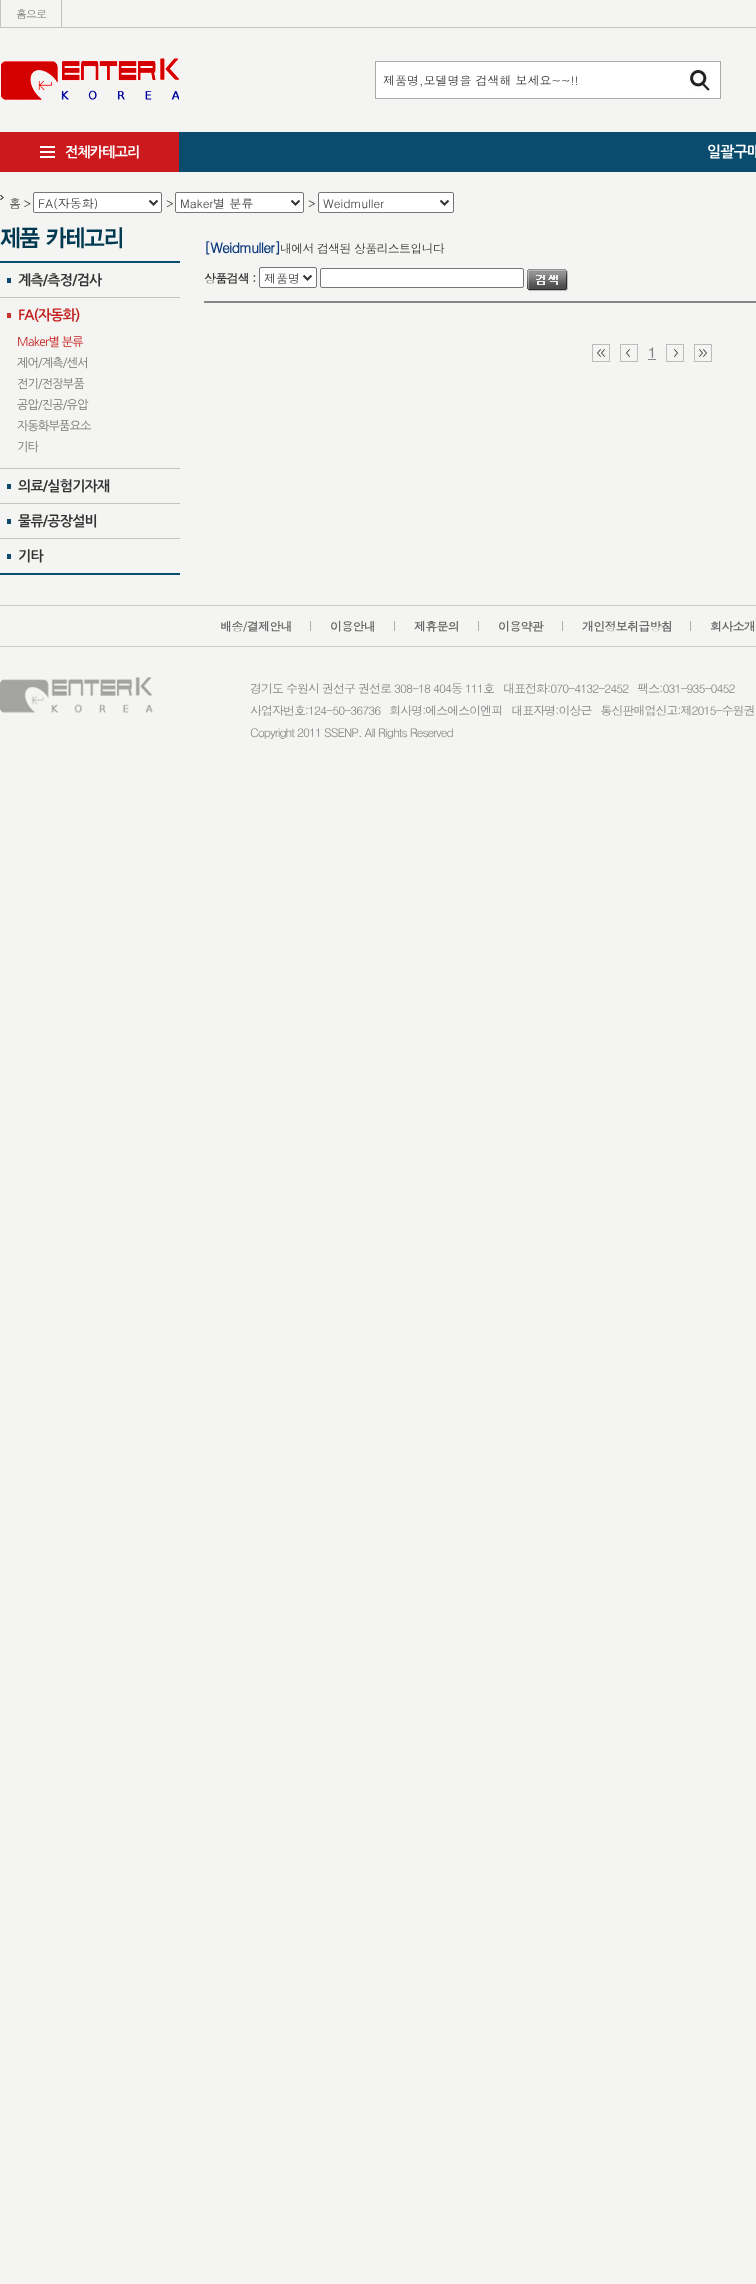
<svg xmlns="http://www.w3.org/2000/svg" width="756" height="2284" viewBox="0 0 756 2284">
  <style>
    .t1 { font: 11px Dotum; letter-spacing: -1px; fill: #777; }
    .t2 { font: 12px Dotum; fill: #333; }
    .t3 { font: bold 14px NanumGothic; letter-spacing: -0.75px; fill: #fff; }
    .t4 { font: bold 15px NanumGothic; letter-spacing: -0.75px; fill: #fff; }
    .t5 { font: 12px Dotum; letter-spacing: -0.75px; fill: #333; }
    .t6 { font: bold 14px NanumGothic; letter-spacing: -0.75px; fill: #333; }
    .t7 { font: bold 14px NanumGothic; letter-spacing: -0.75px; fill: #c22120; }
    .t8 { font: 12px NanumGothic; letter-spacing: -0.75px; fill: #c22120; }
    .t9 { font: 12px NanumGothic; letter-spacing: -0.75px; fill: #777; }
    .t10 { font: bold 14px Dotum; letter-spacing: -0.75px; fill: #0d3a7e; }
    .t11 { font: bold 12px Dotum; letter-spacing: -0.75px; fill: #333; }
    .t12 { font: bold 14px Dotum; letter-spacing: -0.75px; fill: #838383; }
    .t13 { font: bold 12px Dotum; letter-spacing: -0.75px; fill: #666; }
    .t14 { font: 12px Dotum; letter-spacing: -1px; fill: #838383; }
  </style>
  <rect width="100%" height="100%" fill="#f4f4f2"/>
  <rect x="0" y="27" width="756" height="1" fill="#c4c4c4"/>
  <rect x="0" y="0" width="1" height="27" fill="#c4c4c4"/>
  <rect x="61" y="0" width="1" height="27" fill="#c4c4c4"/>
  <text x="16" y="18" class="t1">홈으로</text>
  <image x="1" y="58" width="178" height="42" href="images/1.png"/>
  <rect x="375.5" y="61.5" width="345" height="37" fill="#fff" stroke="#ababab"/>
  <text x="383" y="85" class="t2">제품명,모델명을 검색해 보세요~~!!</text>
  <image x="690" y="70" width="20" height="21" href="images/2.png"/>
  <rect x="179" y="132" width="577" height="40" fill="#0a4c6e"/>
  <rect x="0" y="132" width="179" height="40" fill="#cc191d"/>
  <image x="40" y="146" width="15" height="12" href="images/3.png"/>
  <text x="65" y="157" class="t3">전체카테고리</text>
  <text x="707" y="157" class="t4">일괄구매</text>
  <image x="0" y="195" width="4" height="5" href="images/4.png"/>
  <text x="9" y="208" class="t5">홈 &gt;</text>
  <rect x="33.5" y="192.5" width="128" height="20" rx="1.5" fill="#fff" stroke="#767676"/>
  <path d="M149.5 200.5L153.5 204.5L157.5 200.5" fill="none" stroke="#333" stroke-width="2"/>
  <text x="38" y="208" class="t2">FA(자동화)</text>
  <text x="166" y="208" class="t5">&gt;</text>
  <rect x="175.5" y="192.5" width="128" height="20" rx="1.5" fill="#fff" stroke="#767676"/>
  <path d="M291.5 200.5L295.5 204.5L299.5 200.5" fill="none" stroke="#333" stroke-width="2"/>
  <text x="180" y="208" class="t2">Maker별 분류</text>
  <text x="308" y="208" class="t5">&gt;</text>
  <rect x="318.5" y="192.5" width="135" height="20" rx="1.5" fill="#fff" stroke="#767676"/>
  <path d="M440.5 200.5L444.5 204.5L448.5 200.5" fill="none" stroke="#333" stroke-width="2"/>
  <text x="323" y="208" class="t2">Weidmuller</text>
  <image x="0" y="227" width="122" height="22" href="images/5.png"/>
  <rect x="0" y="261" width="180" height="2" fill="#0a4c6e"/>
  <rect x="0" y="573" width="180" height="2" fill="#0a4c6e"/>
  <rect x="0" y="297" width="180" height="1" fill="#c4c4c4"/>
  <rect x="7" y="278" width="4" height="5" fill="#0a4c6e"/>
  <text x="18" y="285" class="t6">계측/측정/검사</text>
  <rect x="0" y="468" width="180" height="1" fill="#c4c4c4"/>
  <rect x="7" y="313" width="4" height="5" fill="#c63130"/>
  <text x="18" y="320" class="t7">FA(자동화)</text>
  <text x="17" y="346" class="t8">Maker별 분류</text>
  <text x="17" y="367" class="t9">제어/계측/센서</text>
  <text x="17" y="388" class="t9">전기/전장부품</text>
  <text x="17" y="409" class="t9">공압/진공/유압</text>
  <text x="17" y="430" class="t9">자동화부품요소</text>
  <text x="17" y="451" class="t9">기타</text>
  <rect x="0" y="503" width="180" height="1" fill="#c4c4c4"/>
  <rect x="7" y="484" width="4" height="5" fill="#0a4c6e"/>
  <text x="18" y="491" class="t6">의료/실험기자재</text>
  <rect x="0" y="538" width="180" height="1" fill="#c4c4c4"/>
  <rect x="7" y="519" width="4" height="5" fill="#0a4c6e"/>
  <text x="18" y="526" class="t6">물류/공장설비</text>
  <rect x="7" y="554" width="4" height="5" fill="#0a4c6e"/>
  <text x="18" y="561" class="t6">기타</text>
  <text x="204" y="253" class="t10">[Weidmuller]</text>
  <text x="280" y="253" class="t5">내에서 검색된 상품리스트입니다</text>
  <text x="204" y="283" class="t11">상품검색 :</text>
  <rect x="259.5" y="267.5" width="57" height="20" rx="1.5" fill="#fff" stroke="#767676"/>
  <path d="M303.5 275.5L307.5 279.5L311.5 275.5" fill="none" stroke="#333" stroke-width="2"/>
  <text x="264" y="283" class="t2">제품명</text>
  <rect x="320.5" y="268.5" width="203" height="19" rx="1.5" fill="#fff" stroke="#767676"/>
  <image x="527" y="269" width="41" height="22" href="images/6.png"/>
  <rect x="204" y="301" width="552" height="2" fill="#868686"/>
  <image x="592" y="344" width="18" height="18" href="images/7.png"/>
  <image x="620" y="344" width="18" height="18" href="images/8.png"/>
  <text x="648" y="358" class="t12">1</text>
  <rect x="648" y="359" width="8" height="1" fill="#888"/>
  <image x="666" y="344" width="18" height="18" href="images/9.png"/>
  <image x="694" y="344" width="18" height="18" href="images/10.png"/>
  <rect x="0" y="605" width="756" height="1" fill="#cacaca"/>
  <rect x="0" y="646" width="756" height="1" fill="#cacaca"/>
  <text x="220" y="631" class="t13">배송/결제안내</text>
  <rect x="310" y="621" width="1" height="10" fill="#aeaeae"/>
  <text x="330" y="631" class="t13">이용안내</text>
  <rect x="394" y="621" width="1" height="10" fill="#aeaeae"/>
  <text x="414" y="631" class="t13">제휴문의</text>
  <rect x="478" y="621" width="1" height="10" fill="#aeaeae"/>
  <text x="498" y="631" class="t13">이용약관</text>
  <rect x="562" y="621" width="1" height="10" fill="#aeaeae"/>
  <text x="582" y="631" class="t13">개인정보취급방침</text>
  <rect x="690" y="621" width="1" height="10" fill="#aeaeae"/>
  <text x="710" y="631" class="t13">회사소개</text>
  <image x="0" y="677" width="153" height="36" href="images/11.png"/>
  <text x="250" y="693" class="t14" xml:space="preserve">경기도 수원시 권선구 권선로 308-18 404동 111호   대표전화:070-4132-2452   팩스:031-935-0452</text>
  <text x="250" y="715" class="t14" xml:space="preserve">사업자번호:124-50-36736   회사명:에스에스이엔피   대표자명:이상근   통신판매업신고:제2015-수원권</text>
  <text x="250" y="737" class="t14">Copyright 2011 SSENP. All Rights Reserved</text>
</svg>
